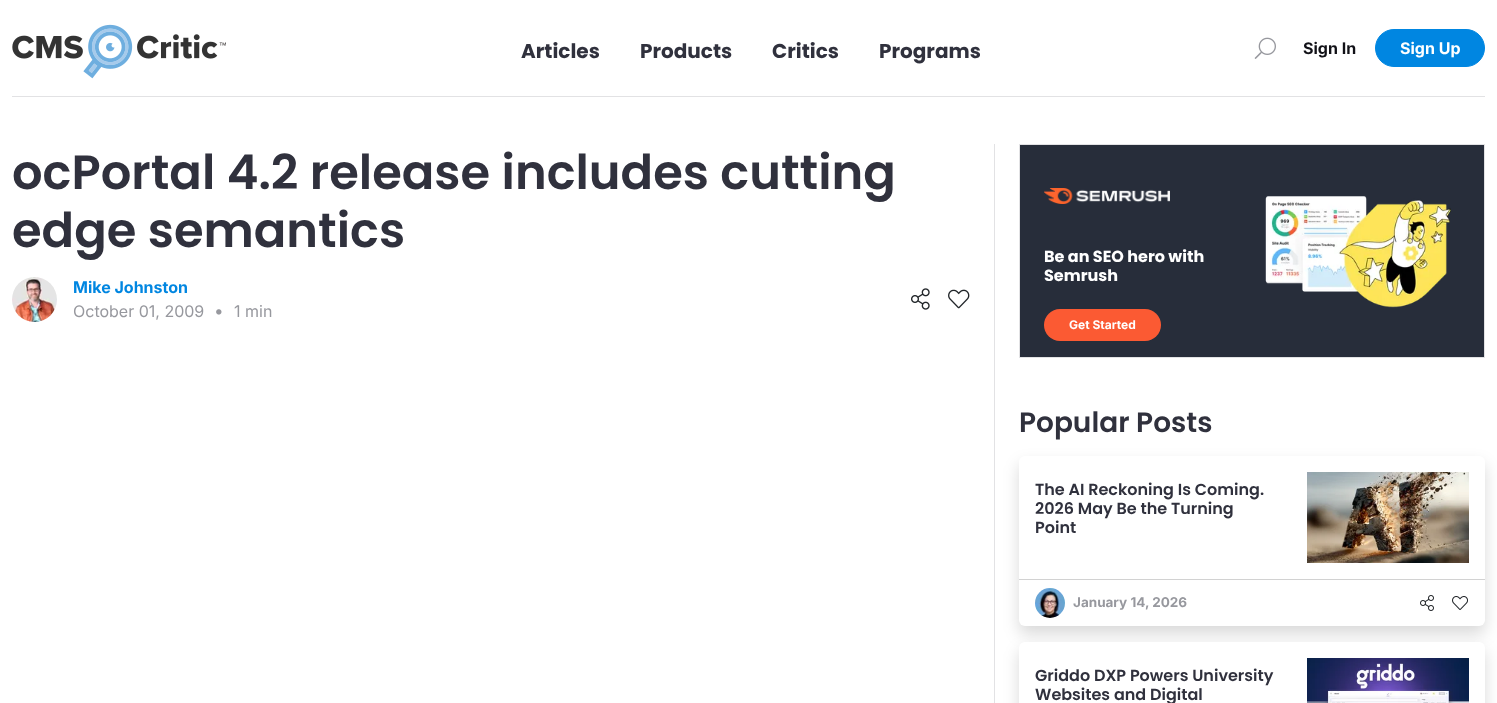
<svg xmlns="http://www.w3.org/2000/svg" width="1497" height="703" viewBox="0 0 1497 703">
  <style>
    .t1 { font: bold 20px Poppins; fill: #30313d; }
    .t2 { font: bold 16px Inter; fill: #111117; }
    .t3 { font: bold 16px Inter; fill: #fff; }
    .t4 { font: 600 48px Poppins; fill: #30313d; }
    .t5 { font: bold 16px Inter; fill: #0086e1; }
    .t6 { font: 16px Inter; fill: #97989e; }
    .t7 { font: bold 16px Poppins; fill: #fff; }
    .t8 { font: bold 12px Inter; fill: #fff; }
    .t9 { font: 600 28px Poppins; fill: #30313d; }
    .t10 { font: 600 16px Poppins; fill: #30313d; }
    .t11 { font: bold 13.5px Inter; fill: #97989e; }
  </style>
  <rect width="100%" height="100%" fill="#fff"/>
  <rect x="12" y="96" width="1473" height="1" fill="#e2e2e4"/>
  <image x="12" y="24" width="214" height="55" href="images/1.png"/>
  <text x="521" y="58" class="t1">Articles</text>
  <text x="640" y="58" class="t1">Products</text>
  <text x="772" y="58" class="t1">Critics</text>
  <text x="879" y="58" class="t1">Programs</text>
  <image x="1254" y="37" width="22" height="22" href="images/2.png"/>
  <text x="1303" y="54" class="t2">Sign In</text>
  <rect x="1375.5" y="29.5" width="109" height="37" rx="18.5" fill="#0086e1" stroke="#0086e1"/>
  <text x="1400" y="54" class="t3">Sign Up</text>
  <text x="12" y="189" class="t4">ocPortal 4.2 release includes cutting</text>
  <text x="12" y="247" class="t4">edge semantics</text>
  <image x="12" y="277" width="45" height="45" href="images/3.png"/>
  <text x="73" y="293" class="t5">Mike Johnston</text>
  <text x="73" y="317" class="t6">October 01, 2009</text>
  <image x="216" y="309" width="6" height="6" href="images/4.png"/>
  <text x="234" y="317" class="t6">1 min</text>
  <image x="911" y="288" width="19" height="22" href="images/5.png"/>
  <image x="948" y="289" width="22" height="20" href="images/6.png"/>
  <rect x="994" y="144" width="1" height="559" fill="#e2e2e4"/>
  <rect x="1019.5" y="144.5" width="465" height="213" fill="#272d3a" stroke="#e2e2e4"/>
  <image x="1044" y="188" width="126" height="16" href="images/7.png"/>
  <text x="1044" y="262" class="t7">Be an SEO hero with</text>
  <text x="1044" y="281" class="t7">Semrush</text>
  <rect x="1044" y="309" width="117" height="32" rx="16" fill="#fb5a33"/>
  <text x="1069" y="329" class="t8">Get Started</text>
  <image x="1265" y="196" width="186" height="112" href="images/8.png"/>
  <text x="1019" y="432" class="t9">Popular Posts</text>
  <rect x="1019" y="464" width="466" height="170" rx="6" fill="#00000026" filter="blur(8px)"/>
  <rect x="1019" y="456" width="466" height="170" rx="6" fill="#fff"/>
  <text x="1035" y="495" class="t10">The AI Reckoning Is Coming.</text>
  <text x="1035" y="514" class="t10">2026 May Be the Turning</text>
  <text x="1035" y="533" class="t10">Point</text>
  <image x="1307" y="472" width="162" height="91" href="images/9.png"/>
  <rect x="1019" y="579" width="466" height="1" fill="#d2d2d2"/>
  <image x="1035" y="588" width="30" height="30" href="images/10.png"/>
  <text x="1073" y="607" class="t11">January 14, 2026</text>
  <image x="1420" y="595" width="14" height="16" href="images/11.png"/>
  <image x="1452" y="596" width="16" height="14" href="images/12.png"/>
  <rect x="1019" y="650" width="466" height="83" rx="6" fill="#00000026" filter="blur(8px)"/>
  <rect x="1019" y="642" width="466" height="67" rx="6" fill="#fff"/>
  <text x="1035" y="681" class="t10">Griddo DXP Powers University</text>
  <text x="1035" y="700" class="t10">Websites and Digital</text>
  <image x="1307" y="658" width="162" height="45" href="images/13.png"/>
</svg>
